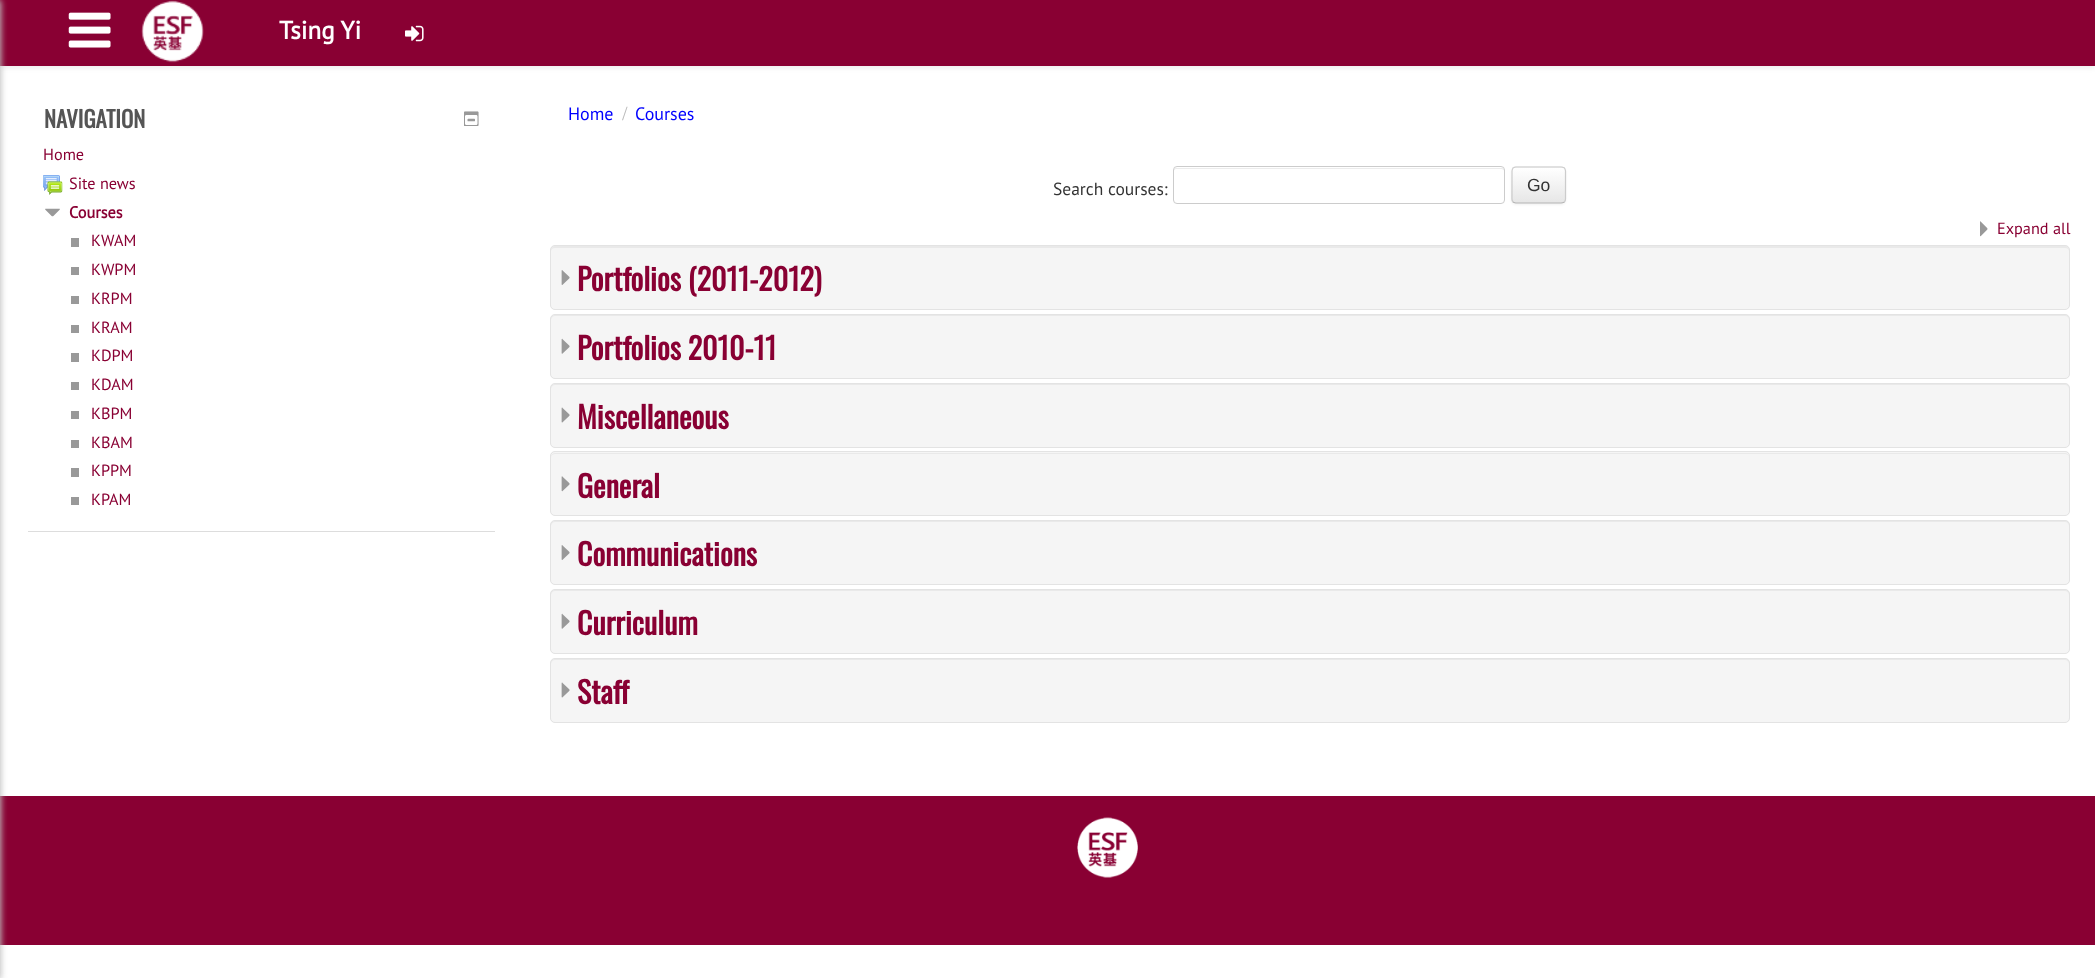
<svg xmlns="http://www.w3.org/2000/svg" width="2095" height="978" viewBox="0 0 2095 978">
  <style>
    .t1 { font: bold 25px PT Sans; fill: #fff; }
    .t2 { font: bold 22.75px Oswald; fill: #555; }
    .t3 { font: 16.25px PT Sans; fill: #890033; }
    .t4 { font: bold 16.25px PT Sans; fill: #890033; }
    .t5 { font: 18px PT Sans; fill: #00f; }
    .t6 { font: 20px Liberation Serif; fill: #bbb; }
    .t7 { font: 17.5px PT Sans; fill: #333; }
    .t8 { font: 17.5px Liberation Sans; fill: #333; }
    .t9 { font: bold 30px Oswald; fill: #890033; }
  </style>
  <defs>
    <clipPath id="clip1"><rect x="1511" y="166" width="55" height="38" rx="5"/></clipPath>
    <linearGradient id="g1" gradientUnits="userSpaceOnUse" x1="1539" y1="168" x2="1539" y2="203"><stop offset="0" stop-color="#fff"/><stop offset="1" stop-color="#e6e6e6"/></linearGradient>
  </defs>
  <rect width="100%" height="100%" fill="#fff"/>
  <rect x="0" y="1" width="2095" height="67" fill="#00000012" filter="blur(2.5px)"/>
  <rect x="0" y="0" width="2095" height="66" fill="#890033"/>
  <rect x="0" y="796" width="2095" height="149" fill="#890033"/>
  <rect x="-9" y="0" width="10" height="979" fill="#c0c0c0" filter="blur(3px)"/>
  <image x="68" y="12" width="43" height="36" href="images/1.png"/>
  <image x="141" y="0" width="63" height="63" href="images/2.png"/>
  <text x="279" y="39" class="t1">Tsing Yi</text>
  <image x="405" y="25" width="19" height="17" href="images/3.png"/>
  <rect x="28" y="531" width="467" height="1" fill="#ddd"/>
  <text x="44" y="128" class="t2">NAVIGATION</text>
  <image x="464" y="111" width="15" height="15" href="images/4.png"/>
  <text x="43" y="160" class="t3">Home</text>
  <image x="43" y="175" width="20" height="20" href="images/5.png"/>
  <text x="69" y="189" class="t3">Site news</text>
  <image x="45" y="208" width="15" height="9" href="images/6.png"/>
  <text x="69" y="218" class="t4">Courses</text>
  <text x="91" y="246" class="t3">KWAM</text>
  <rect x="71" y="238" width="8" height="9" fill="#999"/>
  <text x="91" y="275" class="t3">KWPM</text>
  <rect x="71" y="267" width="8" height="8" fill="#999"/>
  <text x="91" y="304" class="t3">KRPM</text>
  <rect x="71" y="296" width="8" height="8" fill="#999"/>
  <text x="91" y="333" class="t3">KRAM</text>
  <rect x="71" y="325" width="8" height="8" fill="#999"/>
  <text x="91" y="361" class="t3">KDPM</text>
  <rect x="71" y="353" width="8" height="9" fill="#999"/>
  <text x="91" y="390" class="t3">KDAM</text>
  <rect x="71" y="382" width="8" height="8" fill="#999"/>
  <text x="91" y="419" class="t3">KBPM</text>
  <rect x="71" y="411" width="8" height="8" fill="#999"/>
  <text x="91" y="448" class="t3">KBAM</text>
  <rect x="71" y="440" width="8" height="8" fill="#999"/>
  <text x="91" y="476" class="t3">KPPM</text>
  <rect x="71" y="468" width="8" height="9" fill="#999"/>
  <text x="91" y="505" class="t3">KPAM</text>
  <rect x="71" y="497" width="8" height="8" fill="#999"/>
  <text x="568" y="120" class="t5">Home</text>
  <text x="622" y="120" class="t6">/</text>
  <text x="635" y="120" class="t5">Courses</text>
  <text x="1053" y="195" class="t7">Search courses:</text>
  <path d="M1176 169H1501C1503 169 1504 170 1504 171V170C1504 169 1503 168 1502 168H1176C1175 168 1174 169 1174 170V171C1174 170 1175 169 1176 169Z" fill="#ececec"/>
  <rect x="1173.5" y="166.5" width="331" height="37" rx="3.5" fill="none" stroke="#ccc"/>
  <rect x="1511" y="168" width="55" height="37" rx="5" fill="#0000000d" filter="blur(1px)"/>
  <rect x="1511" y="166" width="55" height="38" rx="5" fill="#f5f5f5"/>
  <g clip-path="url(#clip1)">
    <rect x="1511" y="168" width="55" height="35" fill="url(#g1)"/>
  </g>
  <path d="M1564.5 202C1563.5 202.5 1562.5 203 1561 203H1516C1515 203 1514 202.5 1513 202" fill="none" stroke="#b3b3b3" stroke-width="1.2"/>
  <path d="M1513 202C1512.5 201 1512 200 1512 199V171C1512 170 1512.5 169 1513 168C1514 167.5 1515 167 1516 167H1561C1562.5 167 1563.5 167.5 1564.5 168C1565 169 1565.5 170 1565.5 171V199C1565.5 200 1565 201 1564.5 202" fill="none" stroke="#ccc" stroke-width="1.2"/>
  <text x="1527" y="191" class="t8">Go</text>
  <image x="1980" y="221" width="8" height="16" href="images/7.png"/>
  <text x="1997" y="234" class="t3">Expand all</text>
  <rect x="550" y="245" width="1520" height="65" rx="5" fill="#f5f5f5"/>
  <path d="M555 248H2065C2067 248 2069 249 2069 251V250C2069 248 2067 246 2065 246H555C553 246 551 248 551 250V251C551 249 553 248 555 248Z" fill="#e9e9e9"/>
  <rect x="550.5" y="245.5" width="1519" height="64" rx="4.5" fill="none" stroke="#e3e3e3"/>
  <image x="561" y="270" width="9" height="15" href="images/8.png"/>
  <text x="577" y="291" class="t9">Portfolios (2011-2012)</text>
  <rect x="550" y="314" width="1520" height="65" rx="5" fill="#f5f5f5"/>
  <path d="M555 316H2065C2067 316 2069 318 2069 320V319C2069 317 2067 315 2065 315H555C553 315 551 317 551 319V320C551 318 553 316 555 316Z" fill="#e9e9e9"/>
  <rect x="550.5" y="314.5" width="1519" height="64" rx="4.5" fill="none" stroke="#e3e3e3"/>
  <image x="561" y="338" width="9" height="16" href="images/9.png"/>
  <text x="577" y="360" class="t9">Portfolios 2010-11</text>
  <rect x="550" y="383" width="1520" height="65" rx="5" fill="#f5f5f5"/>
  <path d="M555 385H2065C2067 385 2069 387 2069 389V388C2069 386 2067 384 2065 384H555C553 384 551 386 551 388V389C551 387 553 385 555 385Z" fill="#e9e9e9"/>
  <rect x="550.5" y="383.5" width="1519" height="64" rx="4.5" fill="none" stroke="#e3e3e3"/>
  <image x="561" y="407" width="9" height="16" href="images/10.png"/>
  <text x="577" y="429" class="t9">Miscellaneous</text>
  <rect x="550" y="451" width="1520" height="65" rx="5" fill="#f5f5f5"/>
  <path d="M555 454H2065C2067 454 2069 455 2069 458V457C2069 455 2067 453 2065 453H555C553 453 551 455 551 457V458C551 455 553 454 555 454Z" fill="#e9e9e9"/>
  <rect x="550.5" y="451.5" width="1519" height="64" rx="4.5" fill="none" stroke="#e3e3e3"/>
  <image x="561" y="476" width="9" height="16" href="images/11.png"/>
  <text x="577" y="498" class="t9">General</text>
  <rect x="550" y="520" width="1520" height="65" rx="5" fill="#f5f5f5"/>
  <path d="M555 522H2065C2067 522 2069 524 2069 526V525C2069 523 2067 521 2065 521H555C553 521 551 523 551 525V526C551 524 553 522 555 522Z" fill="#e9e9e9"/>
  <rect x="550.5" y="520.5" width="1519" height="64" rx="4.5" fill="none" stroke="#e3e3e3"/>
  <image x="561" y="545" width="9" height="15" href="images/8.png"/>
  <text x="577" y="566" class="t9">Communications</text>
  <rect x="550" y="589" width="1520" height="65" rx="5" fill="#f5f5f5"/>
  <path d="M555 591H2065C2067 591 2069 593 2069 595V594C2069 592 2067 590 2065 590H555C553 590 551 592 551 594V595C551 593 553 591 555 591Z" fill="#e9e9e9"/>
  <rect x="550.5" y="589.5" width="1519" height="64" rx="4.5" fill="none" stroke="#e3e3e3"/>
  <image x="561" y="613" width="9" height="16" href="images/9.png"/>
  <text x="577" y="635" class="t9">Curriculum</text>
  <rect x="550" y="658" width="1520" height="65" rx="5" fill="#f5f5f5"/>
  <path d="M555 660H2065C2067 660 2069 662 2069 664V663C2069 661 2067 659 2065 659H555C553 659 551 661 551 663V664C551 662 553 660 555 660Z" fill="#e9e9e9"/>
  <rect x="550.5" y="658.5" width="1519" height="64" rx="4.5" fill="none" stroke="#e3e3e3"/>
  <image x="561" y="682" width="9" height="16" href="images/10.png"/>
  <text x="577" y="704" class="t9">Staff</text>
  <image x="1077" y="817" width="61" height="61" href="images/12.png"/>
</svg>
